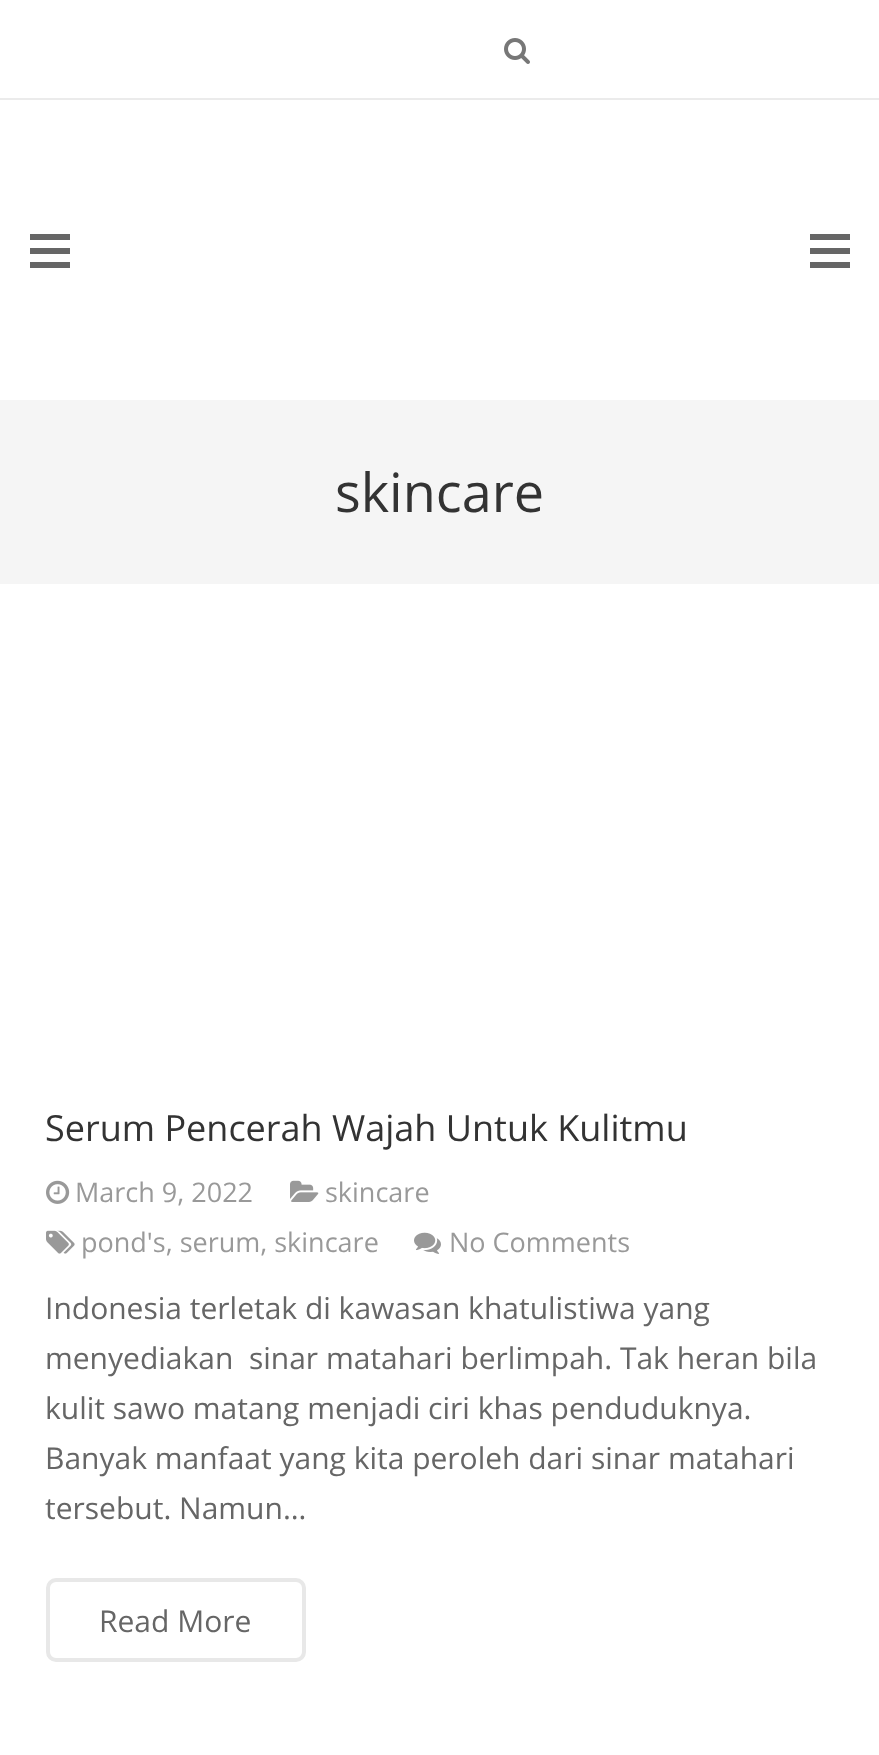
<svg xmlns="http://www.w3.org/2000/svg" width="879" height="1755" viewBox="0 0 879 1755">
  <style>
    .t1 { font: 54px Open Sans; fill: #333; }
    .t2 { font: 36px Open Sans; fill: #333; }
    .t3 { font: 27px Open Sans; fill: #999; }
    .t4 { font: 30px Open Sans; fill: #666; }
  </style>
  <rect width="100%" height="100%" fill="#fff"/>
  <rect x="0" y="98" width="879" height="2" fill="#ebebeb"/>
  <image x="504" y="38" width="26" height="26" href="images/1.png"/>
  <rect x="30" y="248" width="40" height="6" fill="#666"/>
  <rect x="30" y="234" width="40" height="6" fill="#666"/>
  <rect x="30" y="262" width="40" height="6" fill="#666"/>
  <rect x="810" y="248" width="40" height="6" fill="#666"/>
  <rect x="810" y="234" width="40" height="6" fill="#666"/>
  <rect x="810" y="262" width="40" height="6" fill="#666"/>
  <rect x="0" y="400" width="879" height="184" fill="#f5f5f5"/>
  <text x="335" y="512" class="t1">skincare</text>
  <text x="45" y="1141" class="t2">Serum Pencerah Wajah Untuk Kulitmu</text>
  <image x="46" y="1180" width="24" height="24" href="images/2.png"/>
  <text x="75" y="1202" class="t3">March 9, 2022</text>
  <image x="290" y="1180" width="29" height="22" href="images/3.png"/>
  <text x="325" y="1202" class="t3">skincare</text>
  <image x="46" y="1230" width="29" height="24" href="images/4.png"/>
  <text x="81" y="1252" class="t3">pond's, serum, skincare</text>
  <image x="414" y="1232" width="27" height="22" href="images/5.png"/>
  <text x="449" y="1252" class="t3">No Comments</text>
  <text x="45" y="1319" class="t4">Indonesia terletak di kawasan khatulistiwa yang</text>
  <text x="45" y="1369" class="t4" xml:space="preserve">menyediakan  sinar matahari berlimpah. Tak heran bila</text>
  <text x="45" y="1419" class="t4">kulit sawo matang menjadi ciri khas penduduknya.</text>
  <text x="45" y="1469" class="t4">Banyak manfaat yang kita peroleh dari sinar matahari</text>
  <text x="45" y="1519" class="t4">tersebut. Namun…</text>
  <rect x="48" y="1580" width="256" height="80" rx="8" fill="none" stroke="#e8e8e8" stroke-width="4"/>
  <text x="99" y="1632" class="t4">Read More</text>
</svg>
